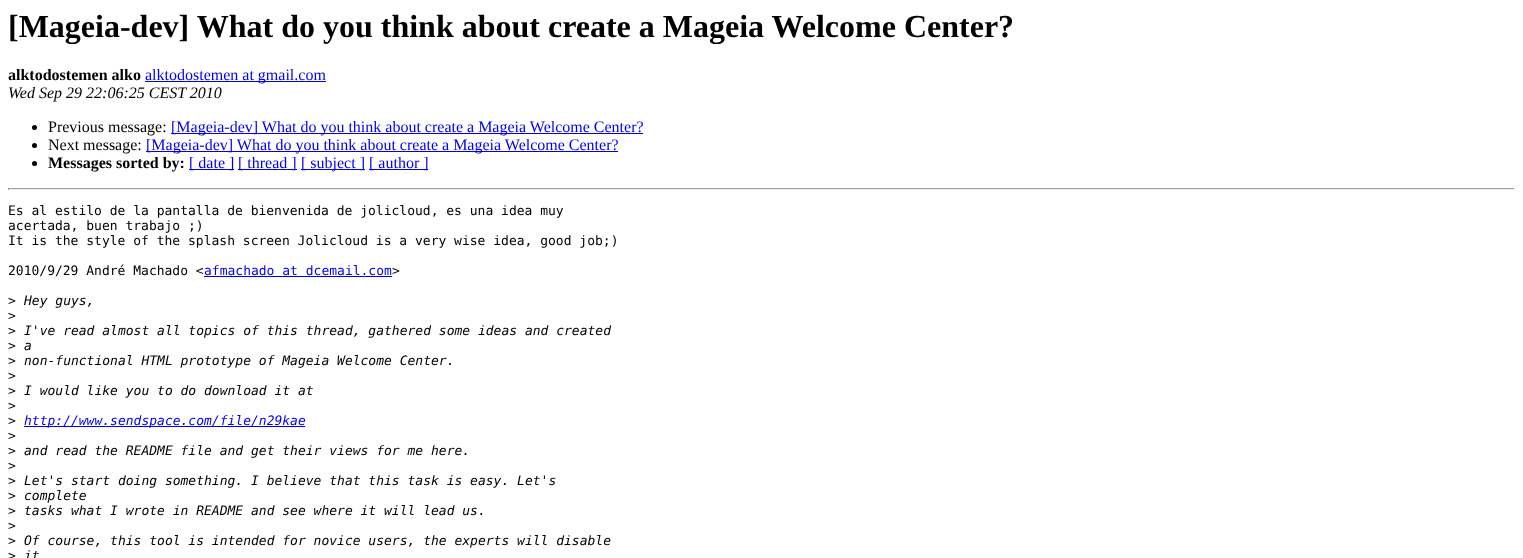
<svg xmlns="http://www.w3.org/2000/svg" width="1523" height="558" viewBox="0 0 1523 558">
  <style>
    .t1 { font: bold 32px Liberation Serif; fill: #000; }
    .t2 { font: bold 16px Liberation Serif; fill: #000; }
    .t3 { font: 16px Liberation Serif; fill: #00e; }
    .t4 { font: italic 16px Liberation Serif; fill: #000; }
    .t5 { font: 16px Liberation Serif; fill: #000; }
    .t6 { font: 13px DejaVu Sans Mono; fill: #000; }
    .t7 { font: 13px DejaVu Sans Mono; fill: #00e; }
    .t8 { font: italic 13px DejaVu Sans Mono; fill: #000; }
    .t9 { font: italic 13px DejaVu Sans Mono; fill: #00e; }
  </style>
  <rect width="100%" height="100%" fill="#fff"/>
  <text x="8" y="37" class="t1">[Mageia-dev] What do you think about create a Mageia Welcome Center?</text>
  <text x="8" y="80" class="t2">alktodostemen alko</text>
  <rect x="145" y="81" width="181" height="1" fill="#00e"/>
  <text x="145" y="80" class="t3">alktodostemen at gmail.com</text>
  <text x="8" y="98" class="t4">Wed Sep 29 22:06:25 CEST 2010</text>
  <circle cx="34.5" cy="127.5" r="2.5" fill="#000"/>
  <text x="48" y="132" class="t5">Previous message:</text>
  <rect x="171" y="133" width="472" height="1" fill="#00e"/>
  <text x="171" y="132" class="t3">[Mageia-dev] What do you think about create a Mageia Welcome Center?</text>
  <circle cx="34.5" cy="145.5" r="2.5" fill="#000"/>
  <text x="48" y="150" class="t5">Next message:</text>
  <rect x="146" y="151" width="472" height="1" fill="#00e"/>
  <text x="146" y="150" class="t3">[Mageia-dev] What do you think about create a Mageia Welcome Center?</text>
  <circle cx="34.5" cy="163.5" r="2.5" fill="#000"/>
  <text x="48" y="168" class="t2">Messages sorted by:</text>
  <rect x="189" y="169" width="45" height="1" fill="#00e"/>
  <text x="189" y="168" class="t3">[ date ]</text>
  <rect x="238" y="169" width="59" height="1" fill="#00e"/>
  <text x="238" y="168" class="t3">[ thread ]</text>
  <rect x="301" y="169" width="64" height="1" fill="#00e"/>
  <text x="301" y="168" class="t3">[ subject ]</text>
  <rect x="369" y="169" width="59" height="1" fill="#00e"/>
  <text x="369" y="168" class="t3">[ author ]</text>
  <rect x="8" y="188" width="1507" height="1" fill="#9f9f9f"/>
  <rect x="1514" y="188" width="1" height="2" fill="#eee"/>
  <rect x="8" y="189" width="1507" height="1" fill="#eee"/>
  <rect x="8" y="188" width="1" height="2" fill="#9f9f9f"/>
  <text x="8" y="215" class="t6">Es al estilo de la pantalla de bienvenida de jolicloud, es una idea muy</text>
  <text x="8" y="230" class="t6">acertada, buen trabajo ;)</text>
  <text x="8" y="245" class="t6">It is the style of the splash screen Jolicloud is a very wise idea, good job;)</text>
  <text x="8" y="275" class="t6">2010/9/29 André Machado &lt;</text>
  <text x="204" y="275" class="t7">afmachado at dcemail.com</text>
  <rect x="204" y="276" width="188" height="1" fill="#00e"/>
  <text x="392" y="275" class="t6">&gt;</text>
  <text x="8" y="305" class="t6">&gt;</text>
  <text x="24" y="305" class="t8">Hey guys,</text>
  <text x="8" y="320" class="t6">&gt;</text>
  <text x="8" y="335" class="t6">&gt;</text>
  <text x="24" y="335" class="t8">I've read almost all topics of this thread, gathered some ideas and created</text>
  <text x="8" y="350" class="t6">&gt;</text>
  <text x="24" y="350" class="t8">a</text>
  <text x="8" y="365" class="t6">&gt;</text>
  <text x="24" y="365" class="t8">non-functional HTML prototype of Mageia Welcome Center.</text>
  <text x="8" y="380" class="t6">&gt;</text>
  <text x="8" y="395" class="t6">&gt;</text>
  <text x="24" y="395" class="t8">I would like you to do download it at</text>
  <text x="8" y="410" class="t6">&gt;</text>
  <text x="8" y="425" class="t6">&gt;</text>
  <rect x="24" y="426" width="281" height="1" fill="#00e"/>
  <text x="24" y="425" class="t9">http://www.sendspace.com/file/n29kae</text>
  <text x="8" y="440" class="t6">&gt;</text>
  <text x="8" y="455" class="t6">&gt;</text>
  <text x="24" y="455" class="t8">and read the README file and get their views for me here.</text>
  <text x="8" y="470" class="t6">&gt;</text>
  <text x="8" y="485" class="t6">&gt;</text>
  <text x="24" y="485" class="t8">Let's start doing something. I believe that this task is easy. Let's</text>
  <text x="8" y="500" class="t6">&gt;</text>
  <text x="24" y="500" class="t8">complete</text>
  <text x="8" y="515" class="t6">&gt;</text>
  <text x="24" y="515" class="t8">tasks what I wrote in README and see where it will lead us.</text>
  <text x="8" y="530" class="t6">&gt;</text>
  <text x="8" y="545" class="t6">&gt;</text>
  <text x="24" y="545" class="t8">Of course, this tool is intended for novice users, the experts will disable</text>
  <text x="8" y="560" class="t6">&gt;</text>
  <text x="24" y="560" class="t8">it</text>
</svg>
